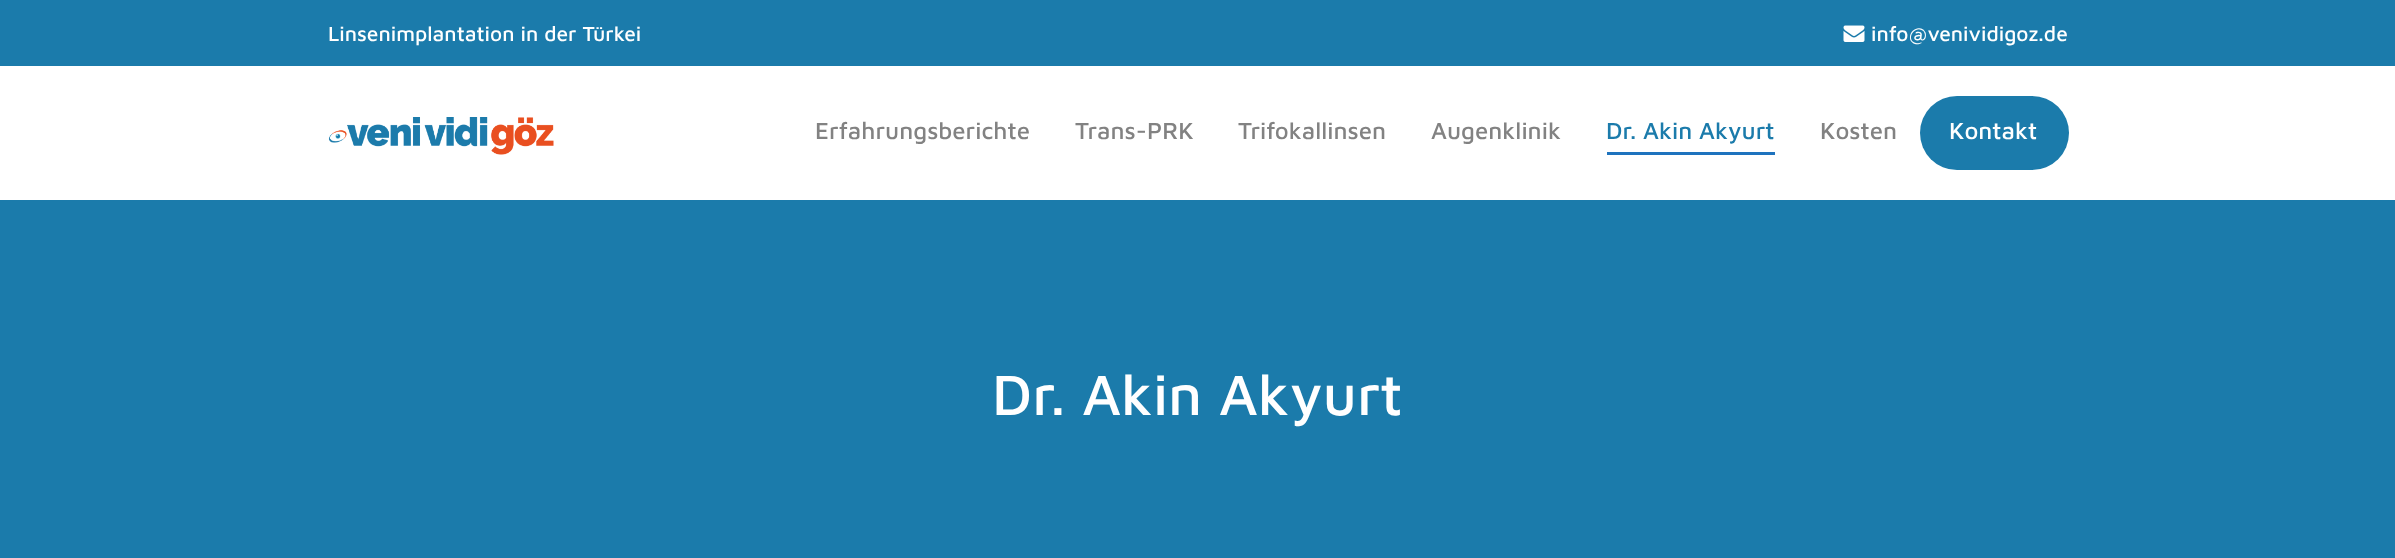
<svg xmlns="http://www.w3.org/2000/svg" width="2395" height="558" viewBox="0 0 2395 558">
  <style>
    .t1 { font: 500 21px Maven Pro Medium; fill: #fff; }
    .t2 { font: 500 24px Maven Pro Medium; fill: #828282; }
    .t3 { font: 500 24px Maven Pro Medium; fill: #1b7bab; }
    .t4 { font: 500 24px Maven Pro Medium; fill: #fff; }
    .t5 { font: 500 58.5px Maven Pro Medium; fill: #fff; }
  </style>
  <rect width="100%" height="100%" fill="#fff"/>
  <rect x="0" y="0" width="2395" height="66" fill="#1b7bab"/>
  <text x="328" y="41" class="t1">Linsenimplantation in der Türkei</text>
  <image x="1843" y="25" width="22" height="17" href="images/1.png"/>
  <text x="1871" y="41" class="t1">info@venividigoz.de</text>
  <image x="328" y="117" width="226" height="38" href="images/2.png"/>
  <text x="815" y="139" class="t2">Erfahrungsberichte</text>
  <text x="1075" y="139" class="t2">Trans-PRK</text>
  <text x="1238" y="139" class="t2">Trifokallinsen</text>
  <text x="1431" y="139" class="t2">Augenklinik</text>
  <text x="1606" y="139" class="t3">Dr. Akin Akyurt</text>
  <rect x="1607" y="152" width="168" height="3" fill="#1e73be"/>
  <text x="1820" y="139" class="t2">Kosten</text>
  <rect x="1920" y="96" width="149" height="74" rx="37" fill="#1b7bab"/>
  <text x="1949" y="139" class="t4">Kontakt</text>
  <rect x="0" y="200" width="2395" height="358" fill="#1b7bab"/>
  <text x="992" y="415" class="t5">Dr. Akin Akyurt</text>
</svg>
